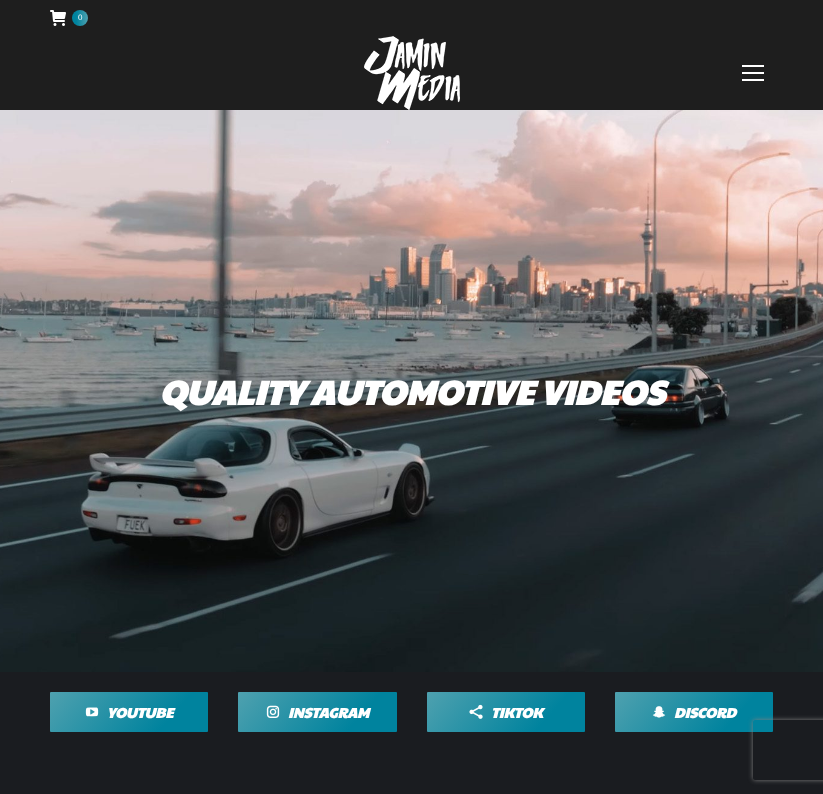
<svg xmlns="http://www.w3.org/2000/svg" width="823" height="794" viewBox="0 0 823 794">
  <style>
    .t1 { font: 8px Liberation Sans; fill: #fff; }
    .t2 { font: italic bold 34px Paytone One; fill: #fff; }
    .t3 { font: italic bold 14px Paytone One; fill: #fff; }
  </style>
  <defs>
    <linearGradient id="g1" gradientUnits="userSpaceOnUse" x1="72" y1="18" x2="88" y2="18"><stop offset="0.26" stop-color="#00839e"/><stop offset="1" stop-color="#4fa1af"/></linearGradient>
    <linearGradient id="g2" gradientUnits="userSpaceOnUse" x1="184" y1="760" x2="74" y2="664"><stop offset="0.26" stop-color="#00839e"/><stop offset="1" stop-color="#4fa1af"/></linearGradient>
    <linearGradient id="g3" gradientUnits="userSpaceOnUse" x1="373" y1="760" x2="262" y2="664"><stop offset="0.26" stop-color="#00839e"/><stop offset="1" stop-color="#4fa1af"/></linearGradient>
    <linearGradient id="g4" gradientUnits="userSpaceOnUse" x1="561" y1="760" x2="451" y2="664"><stop offset="0.26" stop-color="#00839e"/><stop offset="1" stop-color="#4fa1af"/></linearGradient>
    <linearGradient id="g5" gradientUnits="userSpaceOnUse" x1="749" y1="760" x2="639" y2="664"><stop offset="0.26" stop-color="#00839e"/><stop offset="1" stop-color="#4fa1af"/></linearGradient>
    <clipPath id="clip1"><path d="M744 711H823V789H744ZM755 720H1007C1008 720 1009 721 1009 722V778C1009 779 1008 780 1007 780H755C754 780 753 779 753 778V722C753 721 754 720 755 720Z" clip-rule="evenodd"/></clipPath>
  </defs>
  <rect width="100%" height="100%" fill="#1a1c20"/>
  <rect x="0" y="0" width="823" height="110" fill="#1e1e1e"/>
  <image x="50" y="10" width="16" height="16" href="images/1.png"/>
  <circle cx="80" cy="18" r="8" fill="url(#g1)"/>
  <text x="78" y="20" class="t1">0</text>
  <image x="364" y="36" width="96" height="74" href="images/2.png"/>
  <rect x="742" y="65" width="22" height="2" fill="#fff"/>
  <rect x="742" y="72" width="22" height="2" fill="#fff"/>
  <rect x="742" y="79" width="22" height="2" fill="#fff"/>
  <image x="0" y="110" width="823" height="562" href="images/3.png"/>
  <text x="159" y="405" class="t2">QUALITY AUTOMOTIVE VIDEOS</text>
  <rect x="50" y="692" width="158" height="40" rx="1" fill="url(#g2)"/>
  <image x="85" y="707" width="14" height="10" href="images/4.png"/>
  <text x="107" y="718" class="t3">YOUTUBE</text>
  <rect x="238" y="692" width="159" height="40" rx="1" fill="url(#g3)"/>
  <image x="266" y="705" width="14" height="13" href="images/5.png"/>
  <text x="288" y="718" class="t3">INSTAGRAM</text>
  <rect x="427" y="692" width="158" height="40" rx="1" fill="url(#g4)"/>
  <image x="469" y="704" width="14" height="15" href="images/6.png"/>
  <text x="491" y="718" class="t3">TIKTOK</text>
  <rect x="615" y="692" width="158" height="40" rx="1" fill="url(#g5)"/>
  <image x="652" y="706" width="14" height="12" href="images/7.png"/>
  <text x="674" y="718" class="t3">DISCORD</text>
  <g clip-path="url(#clip1)">
    <rect x="753" y="720" width="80" height="60" rx="2" fill="#808080" filter="blur(2.5px)"/>
  </g>
</svg>
